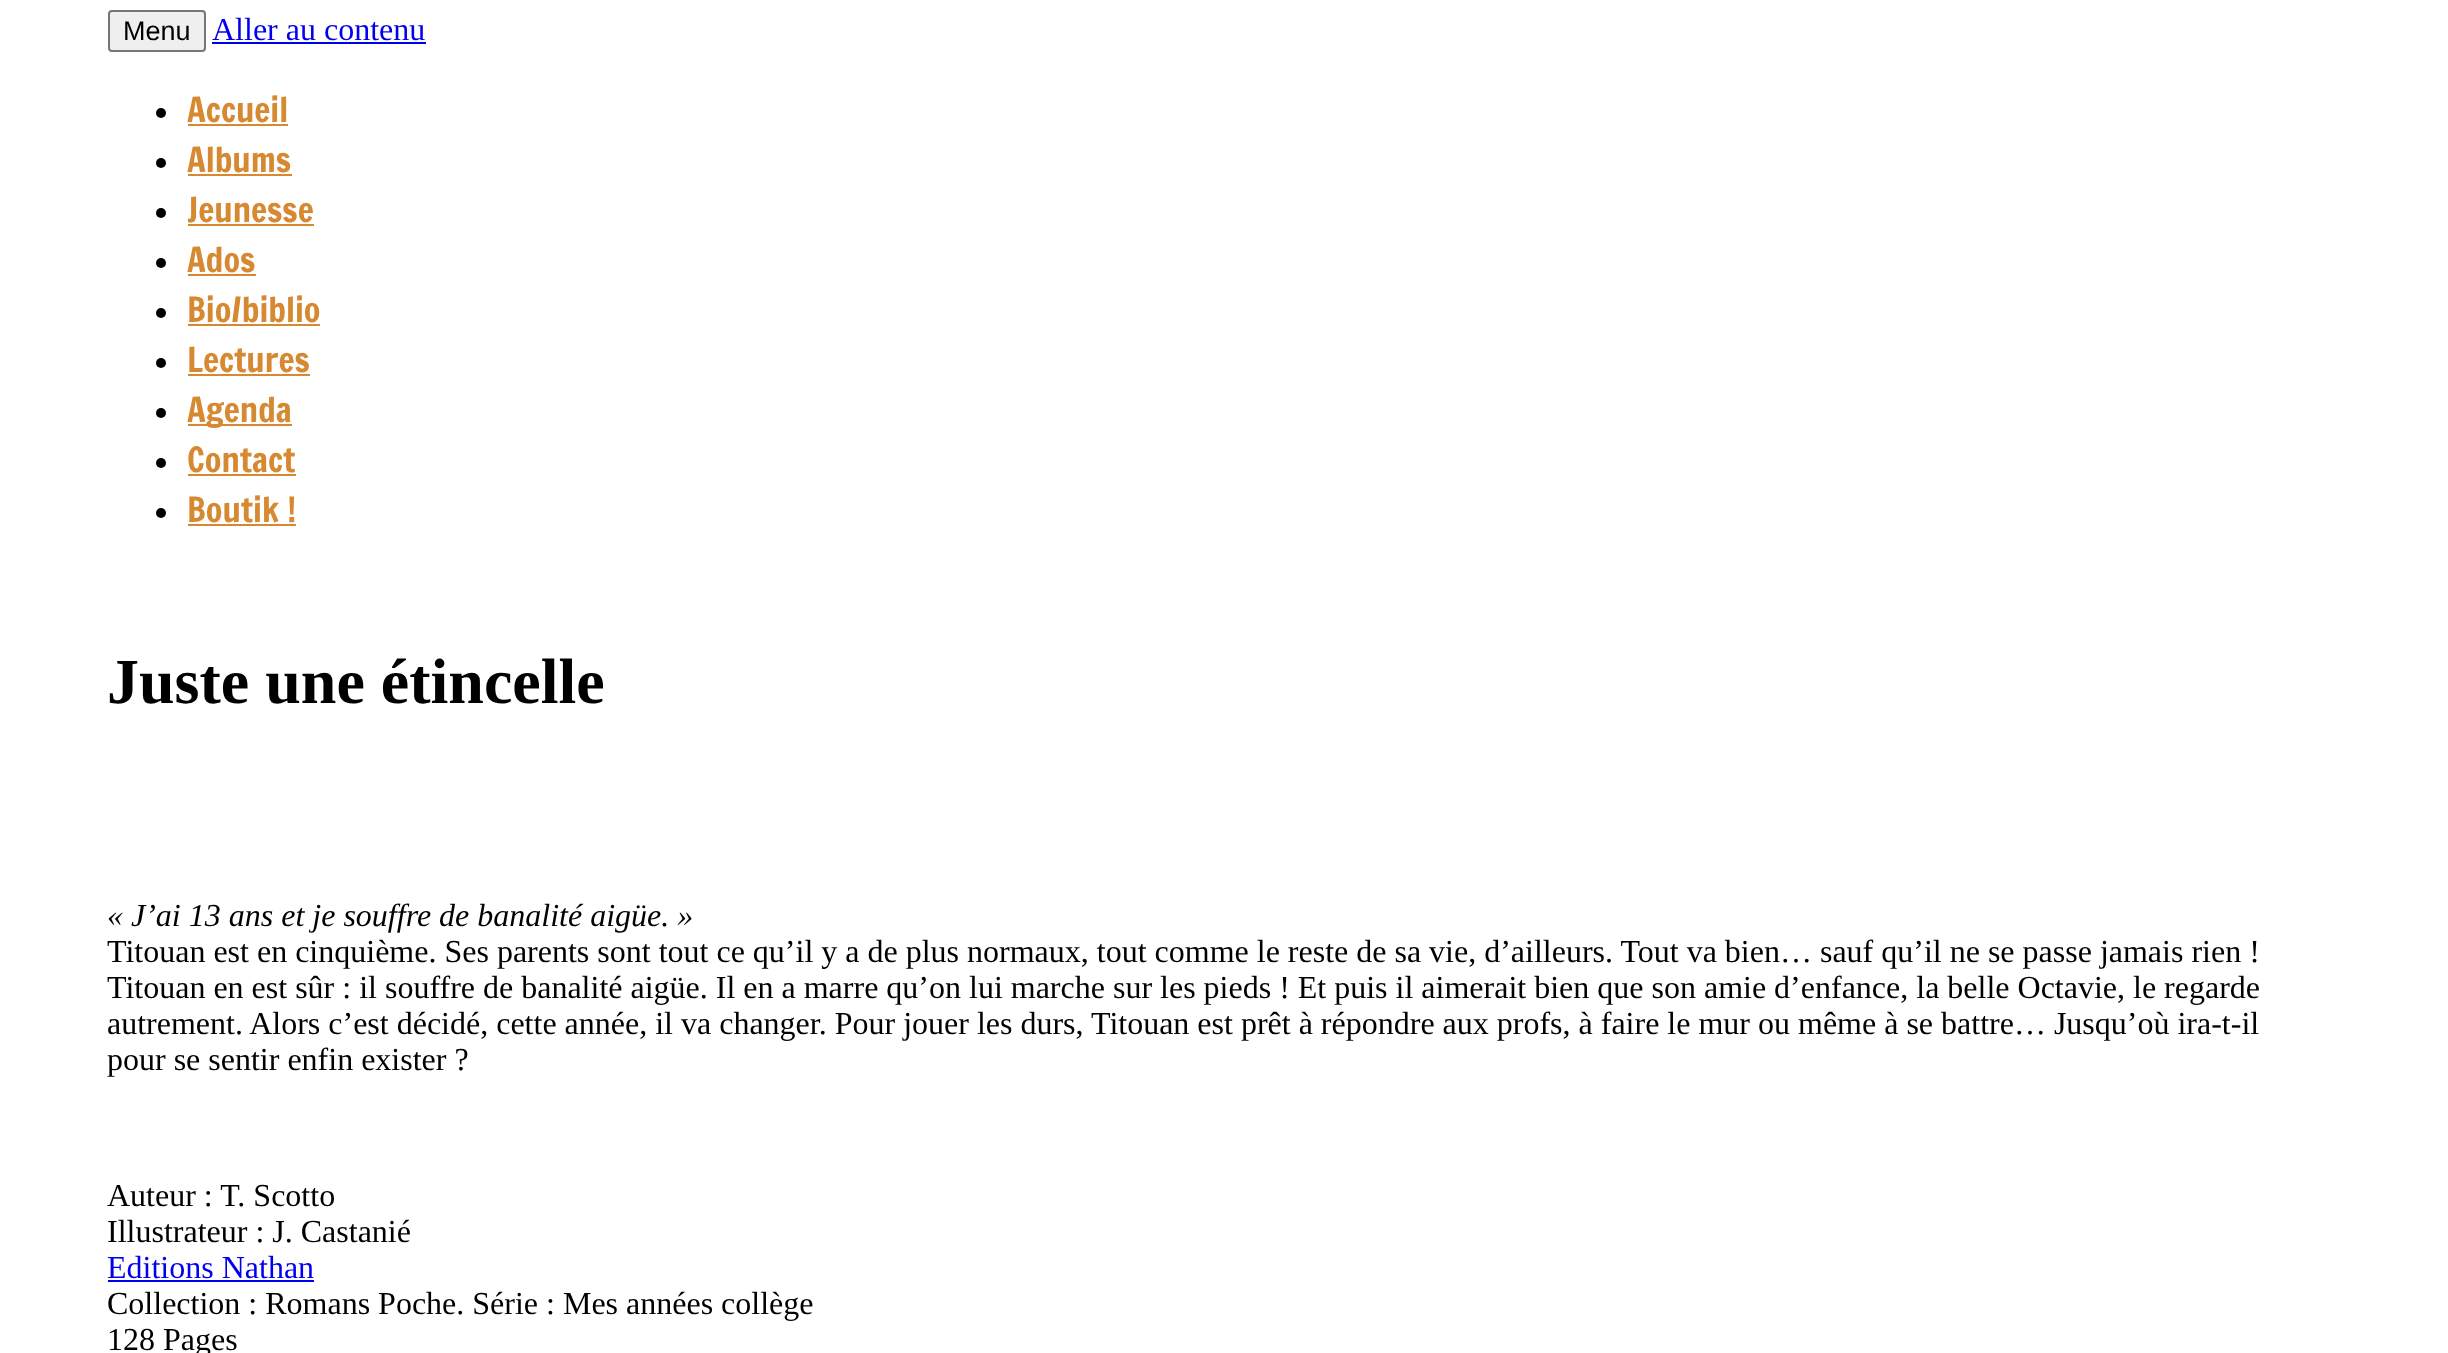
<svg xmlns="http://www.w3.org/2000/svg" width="2448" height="1353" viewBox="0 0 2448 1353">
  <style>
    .t1 { font: 27px Liberation Sans; fill: #000; }
    .t2 { font: 32px Liberation Serif; fill: #00e; }
    .t3 { font: 34px Francois One; fill: #d68931; }
    .t4 { font: bold 64px Liberation Serif; fill: #000; }
    .t5 { font: italic 32px Liberation Serif; fill: #000; }
    .t6 { font: 32px Liberation Serif; fill: #000; }
  </style>
  <rect width="100%" height="100%" fill="#fff"/>
  <rect x="109" y="11" width="96" height="40" rx="3" fill="#efefef" stroke="#767676" stroke-width="2"/>
  <text x="123" y="40" class="t1">Menu</text>
  <text x="212" y="40" class="t2">Aller au contenu</text>
  <rect x="212" y="42" width="214" height="2" fill="#00e"/>
  <circle cx="161" cy="113" r="5" fill="#000"/>
  <text x="187" y="122" class="t3">Accueil</text>
  <rect x="188" y="124" width="100" height="2" fill="#d68931"/>
  <circle cx="161" cy="163" r="5" fill="#000"/>
  <text x="187" y="172" class="t3">Albums</text>
  <rect x="188" y="174" width="104" height="2" fill="#d68931"/>
  <circle cx="161" cy="213" r="5" fill="#000"/>
  <text x="187" y="222" class="t3">Jeunesse</text>
  <rect x="188" y="224" width="126" height="2" fill="#d68931"/>
  <circle cx="161" cy="263" r="5" fill="#000"/>
  <text x="187" y="272" class="t3">Ados</text>
  <rect x="188" y="274" width="68" height="2" fill="#d68931"/>
  <circle cx="161" cy="313" r="5" fill="#000"/>
  <text x="187" y="322" class="t3">Bio/biblio</text>
  <rect x="188" y="324" width="132" height="2" fill="#d68931"/>
  <circle cx="161" cy="363" r="5" fill="#000"/>
  <text x="187" y="372" class="t3">Lectures</text>
  <rect x="188" y="374" width="122" height="2" fill="#d68931"/>
  <circle cx="161" cy="413" r="5" fill="#000"/>
  <rect x="188" y="424" width="104" height="2" fill="#d68931"/>
  <text x="187" y="422" class="t3">Agenda</text>
  <circle cx="161" cy="463" r="5" fill="#000"/>
  <text x="187" y="472" class="t3">Contact</text>
  <rect x="188" y="474" width="108" height="2" fill="#d68931"/>
  <circle cx="161" cy="513" r="5" fill="#000"/>
  <text x="187" y="522" class="t3">Boutik !</text>
  <rect x="188" y="524" width="108" height="2" fill="#d68931"/>
  <text x="107" y="703" class="t4">Juste une étincelle</text>
  <text x="107" y="926" class="t5">« J’ai 13 ans et je souffre de banalité aigüe. »</text>
  <text x="107" y="962" class="t6">Titouan est en cinquième. Ses parents sont tout ce qu’il y a de plus normaux, tout comme le reste de sa vie, d’ailleurs. Tout va bien… sauf qu’il ne se passe jamais rien !</text>
  <text x="107" y="998" class="t6">Titouan en est sûr : il souffre de banalité aigüe. Il en a marre qu’on lui marche sur les pieds ! Et puis il aimerait bien que son amie d’enfance, la belle Octavie, le regarde</text>
  <text x="107" y="1034" class="t6">autrement. Alors c’est décidé, cette année, il va changer. Pour jouer les durs, Titouan est prêt à répondre aux profs, à faire le mur ou même à se battre… Jusqu’où ira-t-il</text>
  <text x="107" y="1070" class="t6">pour se sentir enfin exister ?</text>
  <text x="107" y="1206" class="t6">Auteur : T. Scotto</text>
  <text x="107" y="1242" class="t6">Illustrateur : J. Castanié</text>
  <text x="107" y="1278" class="t2">Editions Nathan</text>
  <rect x="108" y="1280" width="206" height="2" fill="#00e"/>
  <text x="107" y="1314" class="t6">Collection : Romans Poche. Série : Mes années collège</text>
  <text x="107" y="1350" class="t6">128 Pages</text>
</svg>
